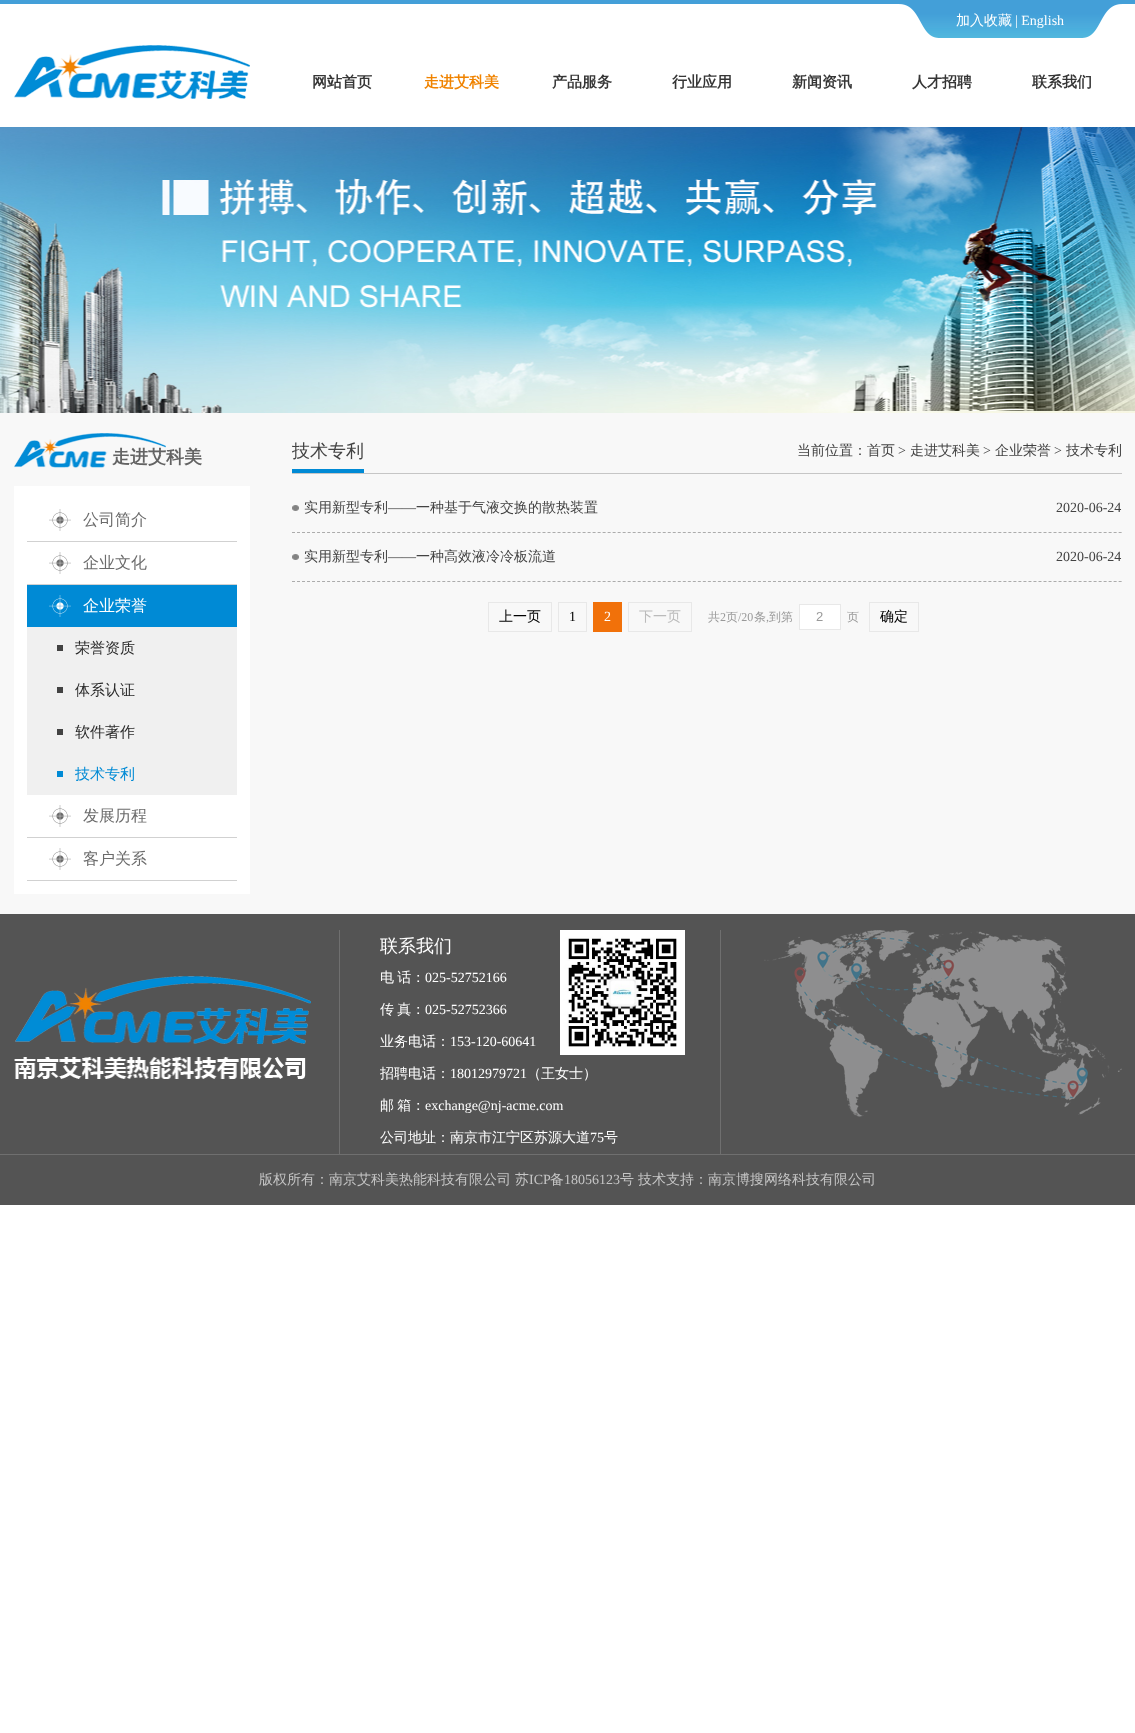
<svg xmlns="http://www.w3.org/2000/svg" width="1135" height="1733" viewBox="0 0 1135 1733">
  <style>
    .t1 { font: 500 14px WenQuanYi Zen Hei; fill: #fff; }
    .t2 { font: 14px Liberation Serif; fill: #fff; }
    .t3 { font: bold 15px WenQuanYi Zen Hei; fill: #363636; }
    .t4 { font: bold 15px WenQuanYi Zen Hei; fill: #f08300; }
    .t5 { font: bold 18px WenQuanYi Zen Hei; fill: #636363; }
    .t6 { font: 500 16px WenQuanYi Zen Hei; fill: #6b6b6b; }
    .t7 { font: 500 16px WenQuanYi Zen Hei; fill: #fff; }
    .t8 { font: 500 15px WenQuanYi Zen Hei; fill: #2a2a2a; }
    .t9 { font: 500 15px WenQuanYi Zen Hei; fill: #008ad5; }
    .t10 { font: 500 18px WenQuanYi Zen Hei; fill: #434343; }
    .t11 { font: 500 14px WenQuanYi Zen Hei; fill: #434343; }
    .t12 { font: 14px Liberation Serif; fill: #434343; }
    .t13 { font: 500 14px WenQuanYi Zen Hei; fill: #000; }
    .t14 { font: 14px Liberation Serif; fill: #000; }
    .t15 { font: 500 14px WenQuanYi Zen Hei; fill: #bbb; }
    .t16 { font: 500 12px WenQuanYi Zen Hei; fill: #999; }
    .t17 { font: 12px Liberation Serif; fill: #999; }
    .t18 { font: 13px Liberation Sans; fill: #999; }
    .t19 { font: 500 18px WenQuanYi Zen Hei; fill: #fff; }
    .t20 { font: 500 14px WenQuanYi Zen Hei; fill: #c5c5c5; }
    .t21 { font: 14px Liberation Serif; fill: #c5c5c5; }
  </style>
  <rect width="100%" height="100%" fill="#fff"/>
  <rect x="0" y="0" width="1135" height="4" fill="#439fd8"/>
  <image x="899" y="4" width="223" height="34" href="images/1.png"/>
  <text x="956" y="25" class="t1">加入收藏</text>
  <text x="1015" y="25" class="t2">| English</text>
  <image x="14" y="45" width="236" height="54" href="images/2.png"/>
  <text x="312" y="87" class="t3">网站首页</text>
  <text x="424" y="87" class="t4">走进艾科美</text>
  <text x="552" y="87" class="t3">产品服务</text>
  <text x="672" y="87" class="t3">行业应用</text>
  <text x="792" y="87" class="t3">新闻资讯</text>
  <text x="912" y="87" class="t3">人才招聘</text>
  <text x="1032" y="87" class="t3">联系我们</text>
  <image x="0" y="127" width="1135" height="286" href="images/3.png"/>
  <rect x="0" y="413" width="1135" height="501" fill="#f8f8f8"/>
  <image x="14" y="433" width="152" height="35" href="images/4.png"/>
  <text x="112" y="463" class="t5">走进艾科美</text>
  <rect x="14" y="486" width="236" height="408" fill="#fff"/>
  <image x="49" y="509" width="22" height="22" href="images/5.png"/>
  <rect x="27" y="541" width="210" height="1" fill="#d1d1d1"/>
  <text x="83" y="525" class="t6">公司简介</text>
  <image x="49" y="552" width="22" height="22" href="images/5.png"/>
  <rect x="27" y="584" width="210" height="1" fill="#d1d1d1"/>
  <text x="83" y="568" class="t6">企业文化</text>
  <rect x="27" y="585" width="210" height="42" fill="#008ad5"/>
  <image x="49" y="595" width="22" height="22" href="images/6.png"/>
  <text x="83" y="611" class="t7">企业荣誉</text>
  <rect x="27" y="627" width="210" height="168" fill="#f0f0f0"/>
  <rect x="57" y="645" width="6" height="6" fill="#424242"/>
  <text x="75" y="653" class="t8">荣誉资质</text>
  <rect x="57" y="687" width="6" height="6" fill="#424242"/>
  <text x="75" y="695" class="t8">体系认证</text>
  <rect x="57" y="729" width="6" height="6" fill="#424242"/>
  <text x="75" y="737" class="t8">软件著作</text>
  <rect x="57" y="771" width="6" height="6" fill="#008ad5"/>
  <text x="75" y="779" class="t9">技术专利</text>
  <image x="49" y="805" width="22" height="22" href="images/5.png"/>
  <rect x="27" y="837" width="210" height="1" fill="#d1d1d1"/>
  <text x="83" y="821" class="t6">发展历程</text>
  <image x="49" y="848" width="22" height="22" href="images/5.png"/>
  <rect x="27" y="880" width="210" height="1" fill="#d1d1d1"/>
  <text x="83" y="864" class="t6">客户关系</text>
  <rect x="292" y="473" width="830" height="1" fill="#c6c6c6"/>
  <rect x="292" y="469" width="72" height="4" fill="#008ad5"/>
  <text x="292" y="457" class="t10">技术专利</text>
  <text x="797" y="455" class="t11">当前位置：首页</text>
  <text x="898" y="455" class="t12">&gt;</text>
  <text x="910" y="455" class="t11">走进艾科美</text>
  <text x="983" y="455" class="t12">&gt;</text>
  <text x="995" y="455" class="t11">企业荣誉</text>
  <text x="1054" y="455" class="t12">&gt;</text>
  <text x="1066" y="455" class="t11">技术专利</text>
  <image x="292" y="505" width="7" height="6" href="images/7.png"/>
  <path d="M292 532.5H1122" fill="none" stroke="#acacac" stroke-dasharray="3 2.01"/>
  <text x="304" y="512" class="t11">实用新型专利</text>
  <text x="388" y="512" class="t12">——</text>
  <text x="416" y="512" class="t11">一种基于气液交换的散热装置</text>
  <text x="1056" y="512" class="t12">2020-06-24</text>
  <image x="292" y="554" width="7" height="6" href="images/7.png"/>
  <path d="M292 581.5H1122" fill="none" stroke="#acacac" stroke-dasharray="3 2.01"/>
  <text x="304" y="561" class="t11">实用新型专利</text>
  <text x="388" y="561" class="t12">——</text>
  <text x="416" y="561" class="t11">一种高效液冷冷板流道</text>
  <text x="1056" y="561" class="t12">2020-06-24</text>
  <rect x="488.5" y="602.5" width="63" height="29" fill="none" stroke="#e8e8e8"/>
  <text x="499" y="621" class="t13">上一页</text>
  <rect x="558.5" y="602.5" width="28" height="29" fill="none" stroke="#e8e8e8"/>
  <text x="569" y="621" class="t14">1</text>
  <rect x="593" y="602" width="29" height="30" fill="#f1710a"/>
  <text x="604" y="621" class="t2">2</text>
  <rect x="628.5" y="602.5" width="63" height="29" fill="none" stroke="#e8e8e8"/>
  <text x="639" y="621" class="t15">下一页</text>
  <text x="708" y="621" class="t16">共</text>
  <text x="720" y="621" class="t17">2</text>
  <text x="726" y="621" class="t16">页</text>
  <text x="738" y="621" class="t17">/20</text>
  <text x="754" y="621" class="t16">条</text>
  <text x="766" y="621" class="t17">,</text>
  <text x="769" y="621" class="t16">到第</text>
  <rect x="799.5" y="604.5" width="41" height="25" fill="#fff" stroke="#e8e8e8"/>
  <text x="816" y="621" class="t18">2</text>
  <text x="847" y="621" class="t16">页</text>
  <rect x="869.5" y="602.5" width="49" height="29" fill="none" stroke="#e8e8e8"/>
  <text x="880" y="621" class="t13">确定</text>
  <rect x="0" y="914" width="1135" height="291" fill="#545454"/>
  <image x="14" y="976" width="297" height="103" href="images/8.png"/>
  <image x="560" y="930" width="125" height="125" href="images/9.png"/>
  <rect x="720" y="930" width="1" height="224" fill="#6f6f6f"/>
  <rect x="339" y="930" width="1" height="224" fill="#6f6f6f"/>
  <text x="380" y="952" class="t19">联系我们</text>
  <text x="380" y="982" word-spacing="-1" class="t1">电 话：</text>
  <text x="425" y="982" class="t2">025-52752166</text>
  <text x="380" y="1014" word-spacing="-1" class="t1">传 真：</text>
  <text x="425" y="1014" class="t2">025-52752366</text>
  <text x="380" y="1046" class="t1">业务电话：</text>
  <text x="450" y="1046" class="t2">153-120-60641</text>
  <text x="380" y="1078" class="t1">招聘电话：</text>
  <text x="450" y="1078" class="t2">18012979721</text>
  <text x="527" y="1078" class="t1">（王女士）</text>
  <text x="380" y="1110" word-spacing="-1" class="t1">邮 箱：</text>
  <text x="425" y="1110" class="t2">exchange@nj-acme.com</text>
  <text x="380" y="1142" class="t1">公司地址：南京市江宁区苏源大道</text>
  <text x="590" y="1142" class="t2">75</text>
  <text x="604" y="1142" class="t1">号</text>
  <image x="764" y="930" width="358" height="187" href="images/10.png"/>
  <rect x="0" y="1154" width="1135" height="1" fill="#6f6f6f"/>
  <text x="259" y="1184" class="t20">版权所有：南京艾科美热能科技有限公司</text>
  <text x="515" y="1184" class="t20">苏</text>
  <text x="529" y="1184" class="t21">ICP</text>
  <text x="550" y="1184" class="t20">备</text>
  <text x="564" y="1184" class="t21">18056123</text>
  <text x="620" y="1184" class="t20">号</text>
  <text x="638" y="1184" class="t20">技术支持：南京博搜网络科技有限公司</text>
</svg>
